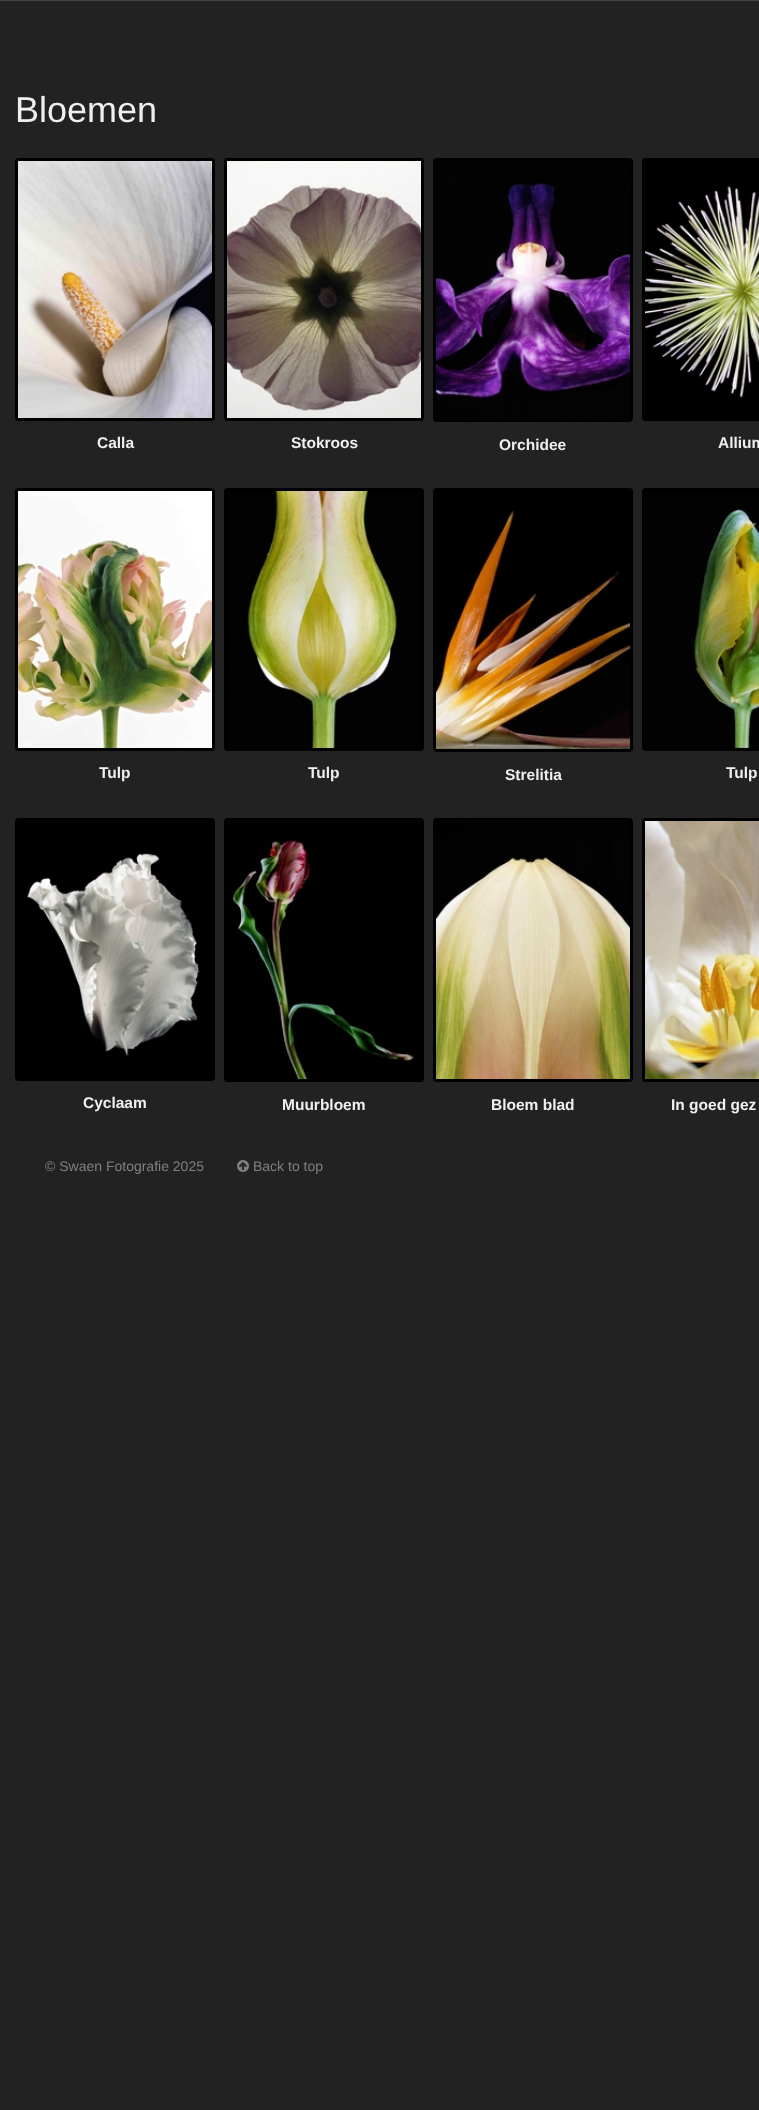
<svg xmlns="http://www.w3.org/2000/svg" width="759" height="2110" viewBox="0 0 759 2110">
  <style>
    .t1 { font: 36px Liberation Sans; fill: #efefef; }
    .t2 { font: bold 15.5px Liberation Sans; fill: #efefef; }
    .t3 { font: 14px Liberation Sans; fill: #808080; }
  </style>
  <rect width="100%" height="100%" fill="#222"/>
  <rect x="0" y="0" width="759" height="1" fill="#434343"/>
  <text x="15" y="122" class="t1">Bloemen</text>
  <rect x="16.5" y="159.5" width="197" height="260" rx="2.5" fill="none" stroke="#000" stroke-width="3"/>
  <image x="18" y="161" width="194" height="257" href="images/1.png"/>
  <text x="97" y="448" class="t2">Calla</text>
  <rect x="225.5" y="159.5" width="197" height="260" rx="2.5" fill="none" stroke="#000" stroke-width="3"/>
  <image x="227" y="161" width="194" height="257" href="images/2.png"/>
  <text x="291" y="448" class="t2">Stokroos</text>
  <rect x="434.5" y="159.5" width="197" height="261" rx="2.5" fill="none" stroke="#000" stroke-width="3"/>
  <image x="436" y="161" width="194" height="258" href="images/3.png"/>
  <text x="499" y="450" class="t2">Orchidee</text>
  <rect x="643.5" y="159.5" width="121" height="260" rx="2.5" fill="none" stroke="#000" stroke-width="3"/>
  <image x="645" y="161" width="114" height="257" href="images/4.png"/>
  <text x="718" y="448" class="t2">Allium</text>
  <rect x="16.5" y="489.5" width="197" height="260" rx="2.5" fill="none" stroke="#000" stroke-width="3"/>
  <image x="18" y="491" width="194" height="257" href="images/5.png"/>
  <text x="99" y="778" class="t2">Tulp</text>
  <rect x="225.5" y="489.5" width="197" height="260" rx="2.5" fill="none" stroke="#000" stroke-width="3"/>
  <image x="227" y="491" width="194" height="257" href="images/6.png"/>
  <text x="308" y="778" class="t2">Tulp</text>
  <rect x="434.5" y="489.5" width="197" height="261" rx="2.5" fill="none" stroke="#000" stroke-width="3"/>
  <image x="436" y="491" width="194" height="258" href="images/7.png"/>
  <text x="505" y="780" class="t2">Strelitia</text>
  <rect x="643.5" y="489.5" width="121" height="260" rx="2.5" fill="none" stroke="#000" stroke-width="3"/>
  <image x="645" y="491" width="114" height="257" href="images/8.png"/>
  <text x="726" y="778" class="t2">Tulp</text>
  <rect x="16.5" y="819.5" width="197" height="260" rx="2.5" fill="none" stroke="#000" stroke-width="3"/>
  <image x="18" y="821" width="194" height="257" href="images/9.png"/>
  <text x="83" y="1108" class="t2">Cyclaam</text>
  <rect x="225.5" y="819.5" width="197" height="261" rx="2.5" fill="none" stroke="#000" stroke-width="3"/>
  <image x="227" y="821" width="194" height="258" href="images/10.png"/>
  <text x="282" y="1110" class="t2">Muurbloem</text>
  <rect x="434.5" y="819.5" width="197" height="261" rx="2.5" fill="none" stroke="#000" stroke-width="3"/>
  <image x="436" y="821" width="194" height="258" href="images/11.png"/>
  <text x="491" y="1110" class="t2">Bloem blad</text>
  <rect x="643.5" y="819.5" width="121" height="261" rx="2.5" fill="none" stroke="#000" stroke-width="3"/>
  <image x="645" y="821" width="114" height="258" href="images/12.png"/>
  <text x="671" y="1110" class="t2">In goed gez</text>
  <text x="45" y="1171" class="t3">© Swaen Fotografie 2025</text>
  <image x="237" y="1160" width="12" height="12" href="images/13.png"/>
  <text x="253" y="1171" class="t3">Back to top</text>
</svg>
